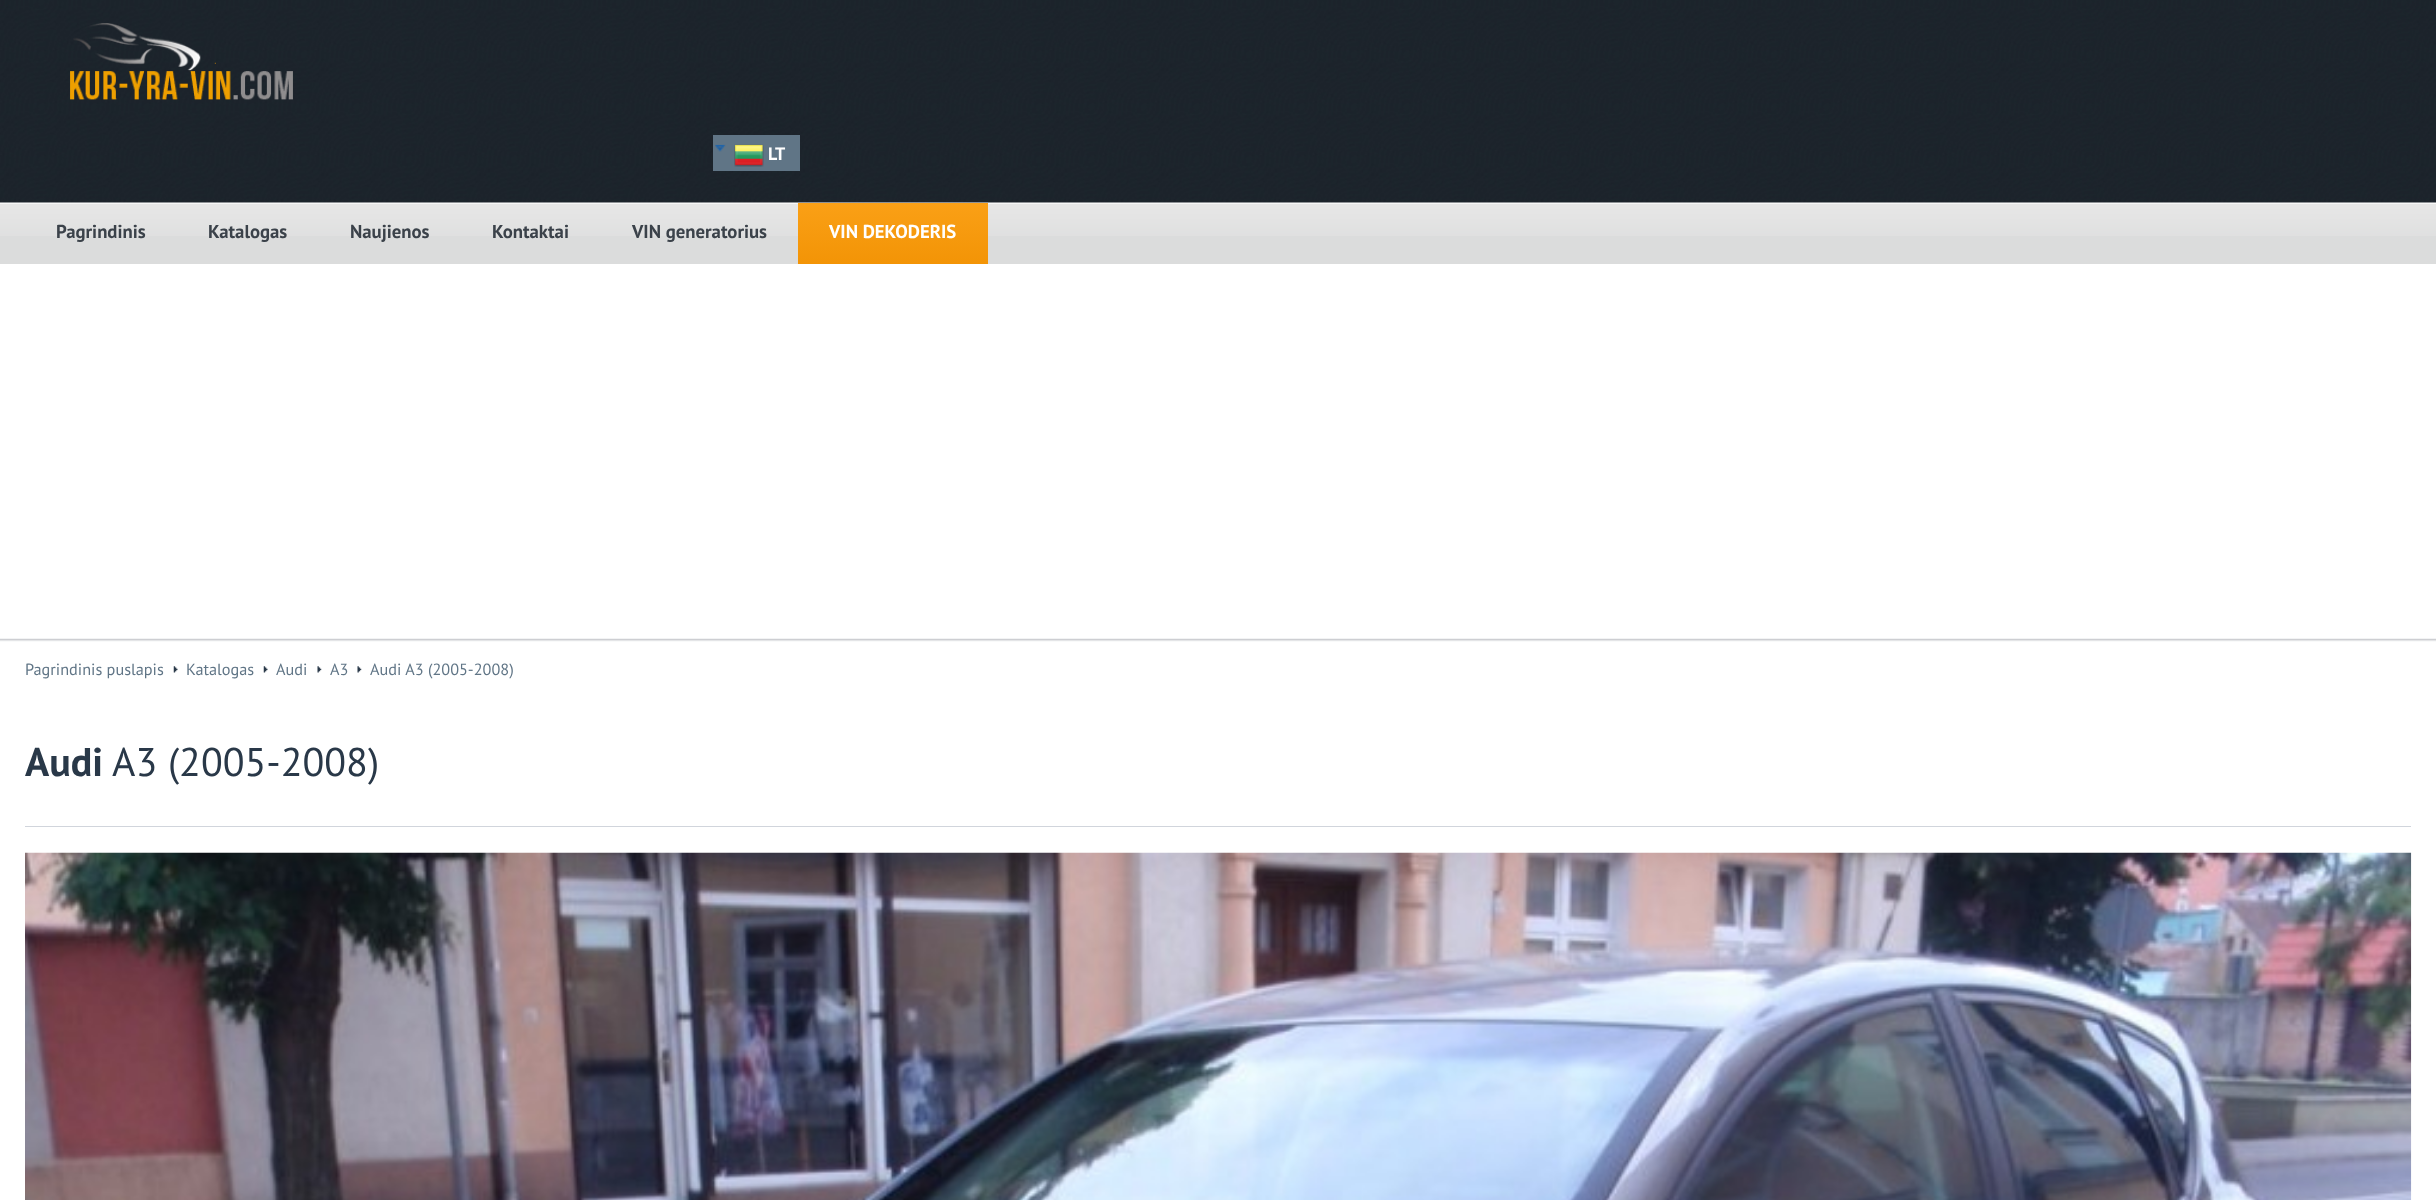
<svg xmlns="http://www.w3.org/2000/svg" width="2436" height="1200" viewBox="0 0 2436 1200">
  <style>
    .t1 { font: bold 18px PT Sans; fill: #fff; }
    .t2 { font: bold 18.75px PT Sans; fill: #3b424a; }
    .t3 { font: bold 18.75px PT Sans; fill: #fff; }
    .t4 { font: 16.25px PT Sans; fill: #607586; }
    .t5 { font: bold 40px PT Sans; fill: #293848; }
    .t6 { font: 40px PT Sans; fill: #293848; }
  </style>
  <defs>
    <linearGradient id="g1" gradientUnits="userSpaceOnUse" x1="893" y1="203" x2="893" y2="264"><stop offset="0" stop-color="#faa016"/><stop offset="1" stop-color="#f39406"/></linearGradient>
  </defs>
  <rect width="100%" height="100%" fill="#fff"/>
  <image x="0" y="0" width="2436" height="203" href="images/1.png"/>
  <image x="70" y="23" width="223" height="77" href="images/2.png"/>
  <rect x="713" y="135" width="87" height="36" fill="#607586"/>
  <image x="715" y="144" width="11" height="8" href="images/3.png"/>
  <image x="734" y="144" width="30" height="23" href="images/4.png"/>
  <text x="768" y="160" class="t1">LT</text>
  <rect x="0" y="236" width="2436" height="28" fill="#dbdcdc"/>
  <image x="0" y="202" width="2436" height="34" href="images/5.png"/>
  <text x="56" y="238" class="t2">Pagrindinis</text>
  <text x="208" y="238" class="t2">Katalogas</text>
  <text x="350" y="238" class="t2">Naujienos</text>
  <text x="492" y="238" class="t2">Kontaktai</text>
  <text x="632" y="238" class="t2">VIN generatorius</text>
  <rect x="798" y="203" width="190" height="61" fill="url(#g1)"/>
  <text x="829" y="238" class="t3">VIN DEKODERIS</text>
  <image x="0" y="638" width="2436" height="4" href="images/6.png"/>
  <text x="25" y="675" class="t4">Pagrindinis puslapis</text>
  <image x="173" y="666" width="5" height="7" href="images/7.png"/>
  <text x="186" y="675" class="t4">Katalogas</text>
  <image x="263" y="666" width="5" height="7" href="images/7.png"/>
  <text x="276" y="675" class="t4">Audi</text>
  <image x="317" y="666" width="5" height="7" href="images/8.png"/>
  <text x="330" y="675" class="t4">A3</text>
  <image x="357" y="666" width="5" height="7" href="images/8.png"/>
  <text x="370" y="675" class="t4">Audi A3 (2005-2008)</text>
  <rect x="25" y="826" width="2386" height="1" fill="#d1d5dc"/>
  <text x="25" y="776" class="t5">Audi</text>
  <text x="112" y="776" class="t6">A3 (2005-2008)</text>
  <image x="25" y="852" width="2387" height="348" href="images/9.png"/>
</svg>
